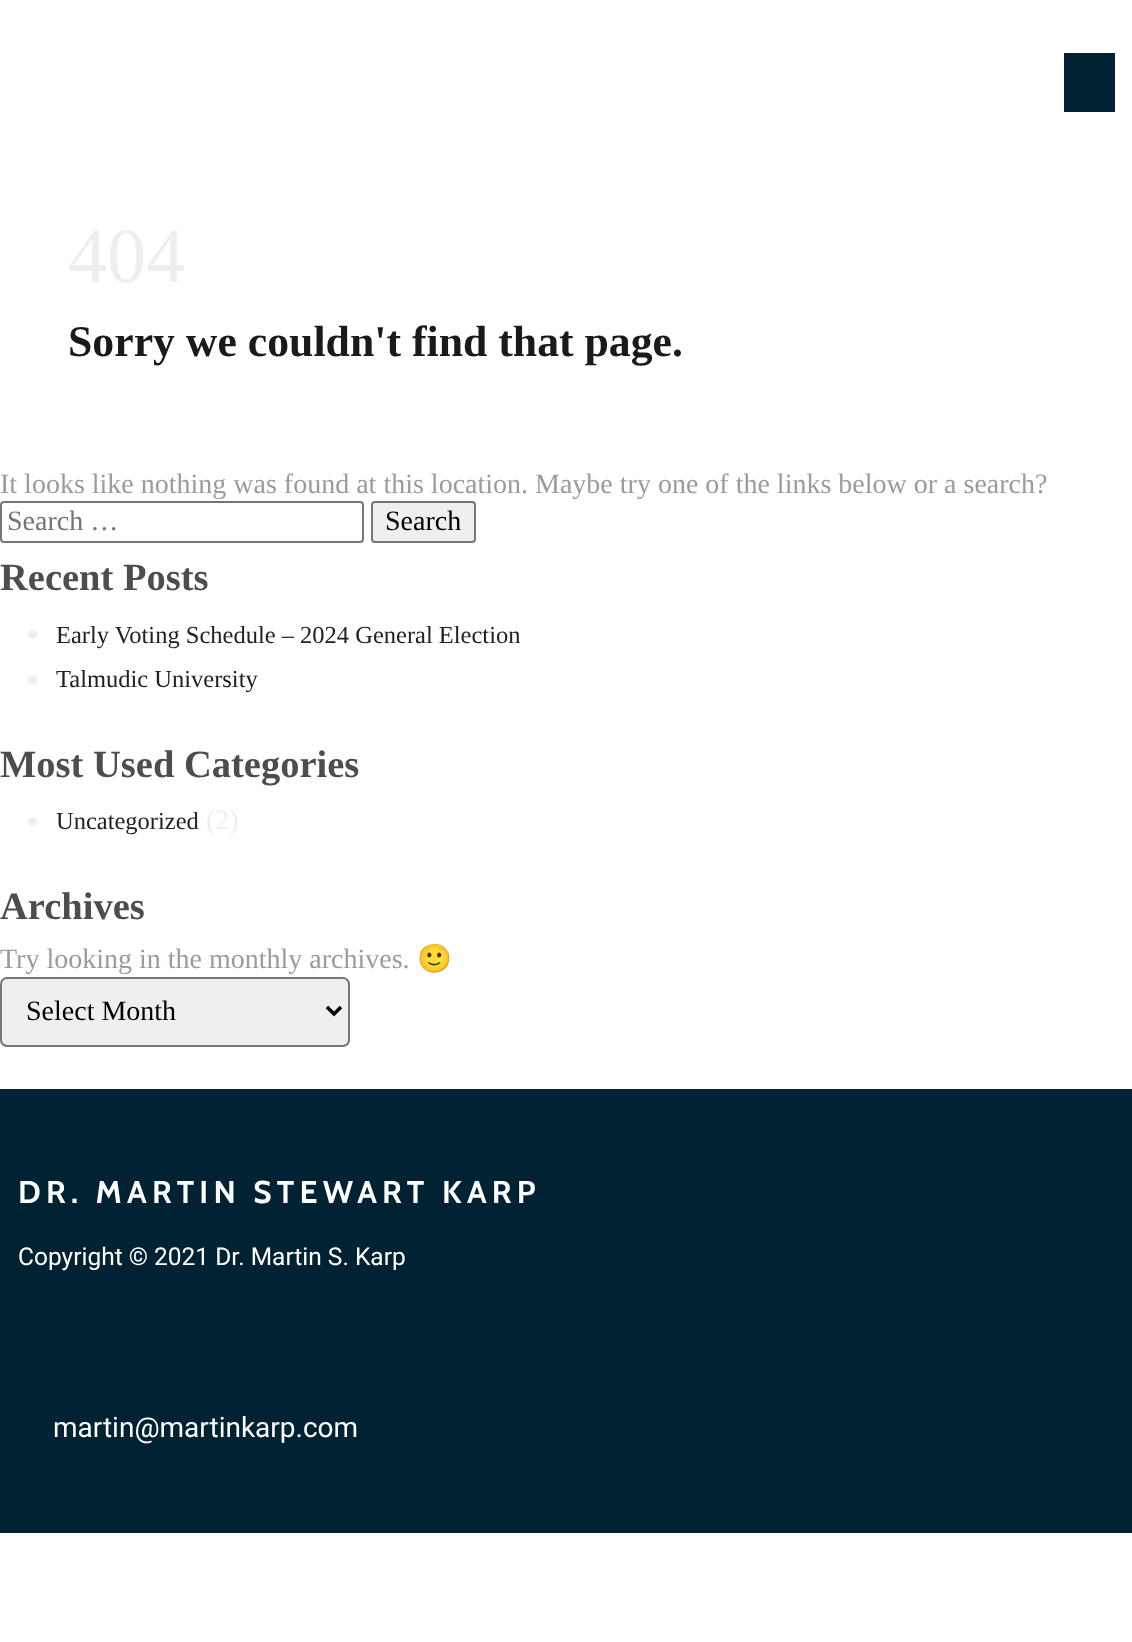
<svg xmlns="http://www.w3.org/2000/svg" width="1132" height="1642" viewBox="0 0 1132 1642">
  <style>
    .t1 { font: 78px Liberation Serif; fill: #eee; }
    .t2 { font: bold 43.75px Liberation Serif; fill: #1a1a1a; }
    .t3 { font: 28px Liberation Serif; fill: #9b9aa0; }
    .t4 { font: 28px Liberation Serif; fill: #757575; }
    .t5 { font: 28px Liberation Serif; fill: #000; }
    .t6 { font: bold 38.5px Liberation Serif; fill: #4d4d4d; }
    .t7 { font: 24.5px Liberation Serif; fill: #212121; }
    .t8 { font: 28px Liberation Serif; fill: #eee; }
    .t9 { font: 28px Noto Color Emoji; fill: #9b9aa0; }
    .t10 { font: bold 31.5px Cabin; letter-spacing: 5.25px; fill: #fff; }
    .t11 { font: 24.5px Roboto; fill: #fff; }
    .t12 { font: 28px Roboto; fill: #fff; }
  </style>
  <rect width="100%" height="100%" fill="#fff"/>
  <rect x="1064" y="53" width="51" height="59" fill="#012233"/>
  <text x="68" y="282" class="t1">404</text>
  <text x="68" y="356" class="t2">Sorry we couldn't find that page.</text>
  <text x="0" y="493" class="t3">It looks like nothing was found at this location. Maybe try one of the links below or a search?</text>
  <rect x="1" y="502" width="362" height="40" rx="3" fill="none" stroke="#767676" stroke-width="2"/>
  <text x="7" y="530" class="t4">Search …</text>
  <rect x="372" y="502" width="103" height="40" rx="3" fill="#efefef" stroke="#767676" stroke-width="2"/>
  <text x="385" y="530" class="t5">Search</text>
  <text x="0" y="590" class="t6">Recent Posts</text>
  <circle cx="32.5" cy="634.5" r="4.5" fill="#eee"/>
  <text x="56" y="643" class="t7">Early Voting Schedule – 2024 General Election</text>
  <rect x="28" y="676" width="9" height="8" rx="4" fill="#eee"/>
  <text x="56" y="687" class="t7">Talmudic University</text>
  <text x="0" y="777" class="t6">Most Used Categories</text>
  <circle cx="32.5" cy="821.5" r="4.5" fill="#eee"/>
  <text x="56" y="829" class="t7">Uncategorized</text>
  <text x="206" y="829" class="t8">(2)</text>
  <text x="0" y="919" class="t6">Archives</text>
  <text x="0" y="968" class="t3">Try looking in the monthly archives.</text>
  <text x="417" y="968" class="t9">🙂</text>
  <rect x="1" y="978" width="348" height="68" rx="6" fill="#efefef" stroke="#767676" stroke-width="2"/>
  <path d="M327 1007L334 1014L341 1007" fill="none" stroke="#000" stroke-width="3.5"/>
  <text x="26" y="1020" class="t5">Select Month</text>
  <rect x="0" y="1089" width="1132" height="444" fill="#012233"/>
  <text x="18" y="1203" class="t10">DR. MARTIN STEWART KARP</text>
  <text x="18" y="1265" class="t11">Copyright © 2021 Dr. Martin S. Karp</text>
  <text x="53" y="1437" class="t12">martin@martinkarp.com</text>
</svg>
